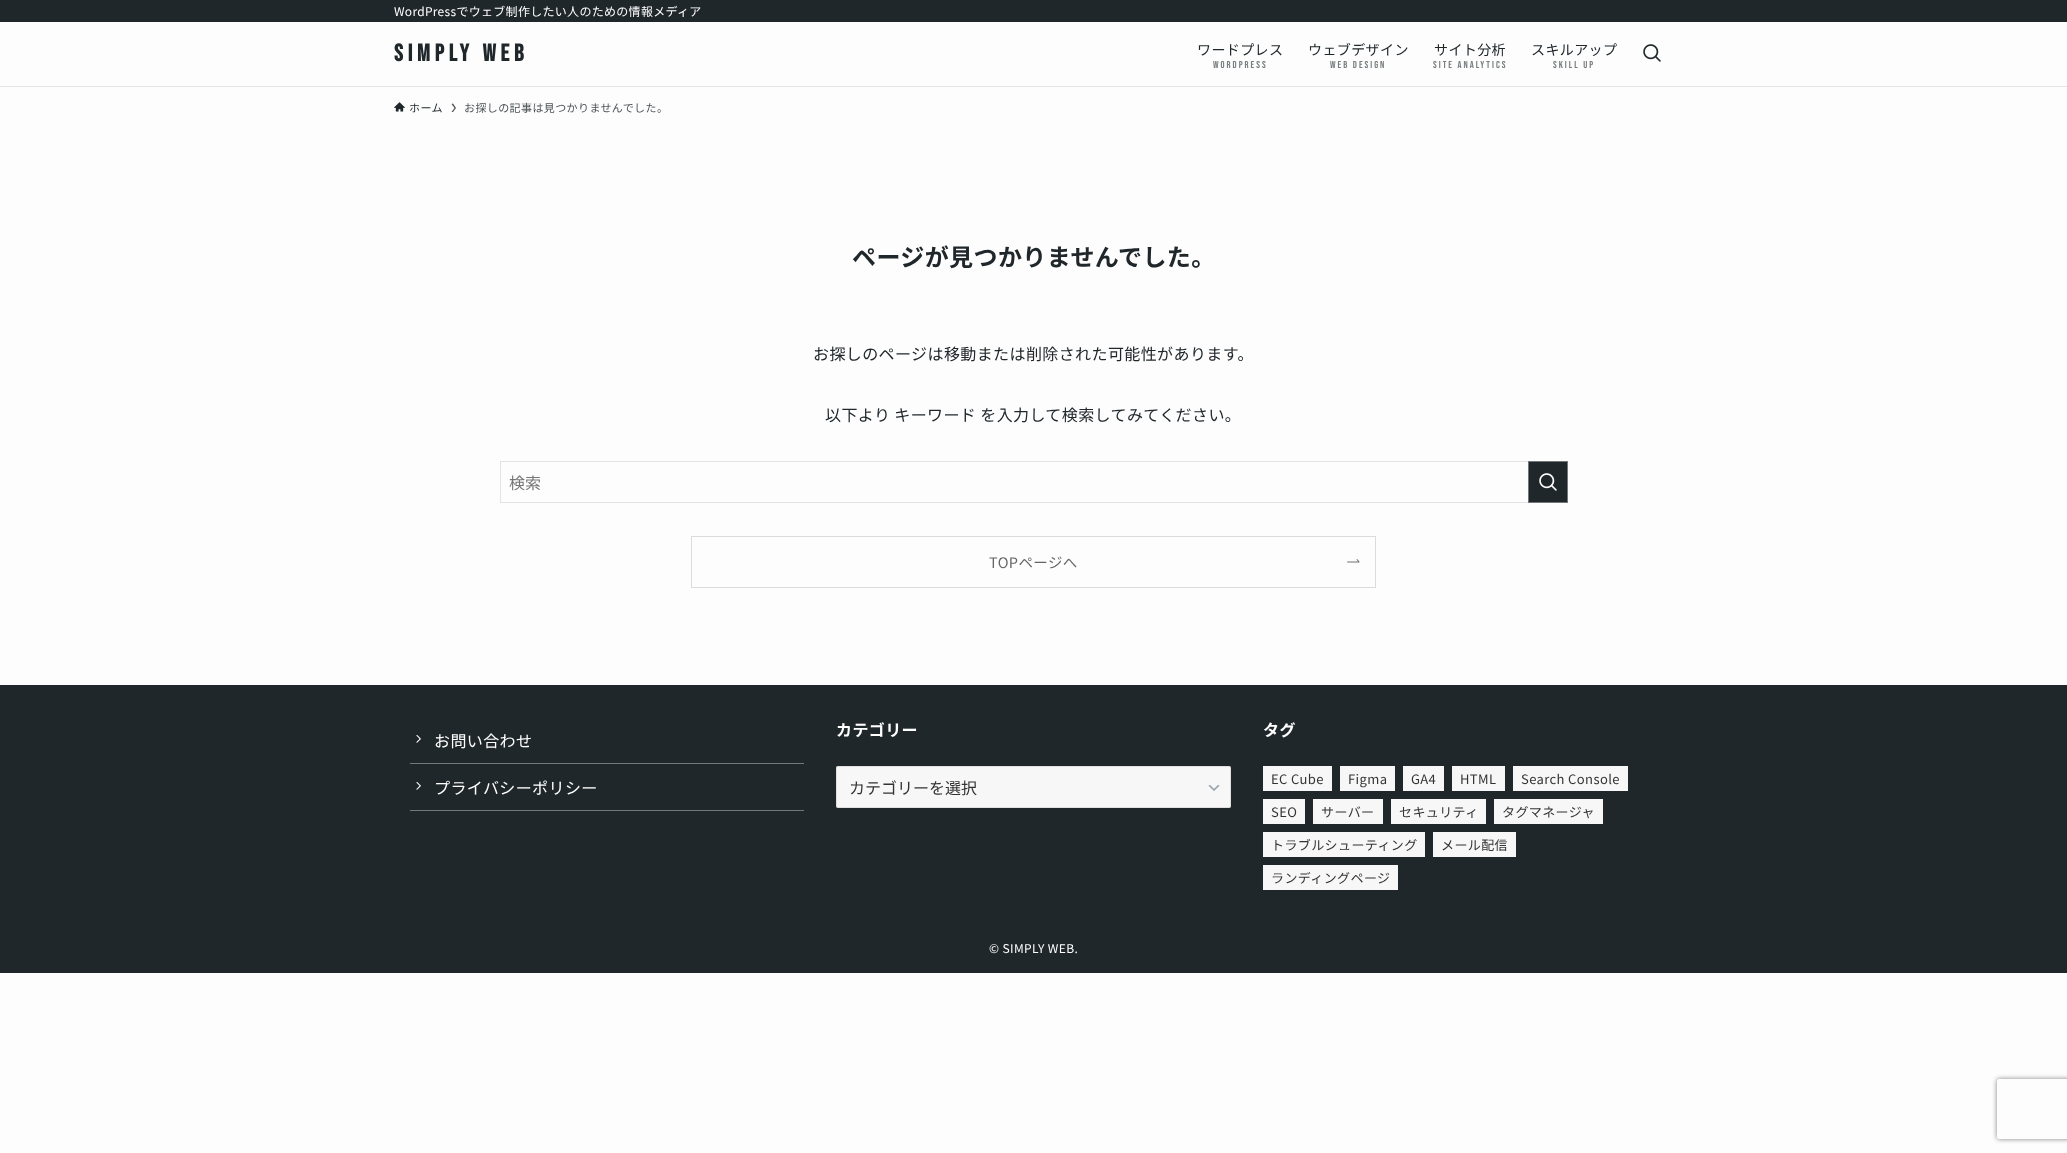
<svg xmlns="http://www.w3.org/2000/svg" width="2067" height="1153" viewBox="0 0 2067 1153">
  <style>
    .t1 { font: 12px Noto Sans JP; letter-spacing: 0.3px; fill: #fff; }
    .t2 { font: bold 24px Bebas Neue; letter-spacing: 4.75px; fill: #20272b; }
    .t3 { font: 14px Noto Sans JP; letter-spacing: 0.4px; fill: #20272b; }
    .t4 { font: 10px Bebas Neue; letter-spacing: 2px; fill: #787d7f; }
    .t5 { font: 11px Noto Sans JP; letter-spacing: 0.4px; fill: #20272b; }
    .t6 { font: 11px Noto Sans JP; letter-spacing: 0.4px; fill: #4c5255; }
    .t7 { font: bold 24px Noto Sans JP; letter-spacing: 0.4px; fill: #20272b; }
    .t8 { font: 16px Noto Sans JP; letter-spacing: 0.4px; fill: #20272b; }
    .t9 { font: 16px Noto Sans JP; fill: #757575; }
    .t10 { font: 14.5px Noto Sans JP; letter-spacing: 0.4px; fill: #666; }
    .t11 { font: 16px Noto Sans JP; letter-spacing: 0.4px; fill: #fff; }
    .t12 { font: bold 16px Noto Sans JP; letter-spacing: 0.4px; fill: #fff; }
    .t13 { font: 16px Noto Sans JP; fill: #333; }
    .t14 { font: 13px Noto Sans JP; letter-spacing: 0.4px; fill: #333; }
    .t15 { font: 12px Noto Sans JP; letter-spacing: 0.4px; fill: #fff; }
  </style>
  <defs>
    <clipPath id="clip1"><path d="M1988 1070H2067V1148H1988ZM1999 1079H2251C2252 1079 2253 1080 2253 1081V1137C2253 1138 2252 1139 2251 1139H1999C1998 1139 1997 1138 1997 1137V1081C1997 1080 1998 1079 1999 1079Z" clip-rule="evenodd"/></clipPath>
  </defs>
  <rect width="100%" height="100%" fill="#fdfdfd"/>
  <rect x="0" y="86" width="2067" height="1" fill="#e4e4e4"/>
  <rect x="0" y="0" width="2067" height="22" fill="#20272b"/>
  <text x="394" y="16" class="t1">WordPressでウェブ制作したい人のための情報メディア</text>
  <text x="394" y="61" class="t2">SIMPLY WEB</text>
  <text x="1197" y="55" class="t3">ワードプレス</text>
  <text x="1213" y="68" class="t4">WordPress</text>
  <text x="1308" y="55" class="t3">ウェブデザイン</text>
  <text x="1330" y="68" class="t4">Web Design</text>
  <text x="1434" y="55" class="t3">サイト分析</text>
  <text x="1433" y="68" class="t4">Site Analytics</text>
  <text x="1531" y="55" class="t3">スキルアップ</text>
  <text x="1553" y="68" class="t4">Skill Up</text>
  <image x="1643" y="44" width="18" height="18" href="images/1.png"/>
  <image x="394" y="102" width="11" height="10" href="images/2.png"/>
  <text x="409" y="112" class="t5">ホーム</text>
  <path d="M453 103.5L451.5 104L454.5 108L451.5 112H453L456 108Z" fill="#4c5255"/>
  <text x="464" y="112" class="t6">お探しの記事は見つかりませんでした。</text>
  <text x="852" y="266" class="t7">ページが見つかりませんでした。</text>
  <text x="813" y="360" class="t8">お探しのページは移動または削除された可能性があります。</text>
  <text x="825" y="421" class="t8">以下より キーワード を入力して検索してみてください。</text>
  <rect x="500.5" y="461.5" width="1067" height="41" fill="none" stroke="#e3e3e3"/>
  <text x="509" y="489" class="t9">検索</text>
  <rect x="1528.5" y="461.5" width="39" height="41" fill="#20272b" stroke="#747779"/>
  <image x="1539" y="473" width="18" height="18" href="images/3.png"/>
  <rect x="691.5" y="536.5" width="684" height="51" fill="none" stroke="#dcdcdc"/>
  <text x="989" y="568" class="t10">TOPページへ</text>
  <image x="1347" y="559" width="13" height="4" href="images/4.png"/>
  <rect x="0" y="685" width="2067" height="288" fill="#20272b"/>
  <rect x="410" y="763" width="394" height="1" fill="#747779"/>
  <image x="416" y="735" width="5" height="8" href="images/5.png"/>
  <text x="434" y="747" class="t11">お問い合わせ</text>
  <rect x="410" y="810" width="394" height="1" fill="#747779"/>
  <image x="416" y="782" width="5" height="8" href="images/5.png"/>
  <text x="434" y="794" class="t11">プライバシーポリシー</text>
  <text x="836" y="736" class="t12">カテゴリー</text>
  <rect x="836" y="766" width="395" height="42" rx="2" fill="#f7f7f7"/>
  <image x="1208" y="785" width="12" height="6" href="images/6.png"/>
  <rect x="836.5" y="766.5" width="394" height="41" rx="1.5" fill="none" stroke="#c7c7c780"/>
  <text x="849" y="794" class="t13">カテゴリーを選択</text>
  <text x="1263" y="736" class="t12">タグ</text>
  <rect x="1263" y="766" width="69" height="25" fill="#f7f7f7"/>
  <text x="1271" y="784" class="t14">EC Cube</text>
  <rect x="1340" y="766" width="55" height="25" fill="#f7f7f7"/>
  <text x="1348" y="784" class="t14">Figma</text>
  <rect x="1403" y="766" width="41" height="25" fill="#f7f7f7"/>
  <text x="1411" y="784" class="t14">GA4</text>
  <rect x="1452" y="766" width="53" height="25" fill="#f7f7f7"/>
  <text x="1460" y="784" class="t14">HTML</text>
  <rect x="1513" y="766" width="115" height="25" fill="#f7f7f7"/>
  <text x="1521" y="784" class="t14">Search Console</text>
  <rect x="1263" y="799" width="42" height="25" fill="#f7f7f7"/>
  <text x="1271" y="817" class="t14">SEO</text>
  <rect x="1313" y="799" width="70" height="25" fill="#f7f7f7"/>
  <text x="1321" y="817" class="t14">サーバー</text>
  <rect x="1391" y="799" width="95" height="25" fill="#f7f7f7"/>
  <text x="1399" y="817" class="t14">セキュリティ</text>
  <rect x="1494" y="799" width="109" height="25" fill="#f7f7f7"/>
  <text x="1502" y="817" class="t14">タグマネージャ</text>
  <rect x="1263" y="832" width="162" height="25" fill="#f7f7f7"/>
  <text x="1271" y="850" class="t14">トラブルシューティング</text>
  <rect x="1433" y="832" width="83" height="25" fill="#f7f7f7"/>
  <text x="1441" y="850" class="t14">メール配信</text>
  <rect x="1263" y="865" width="135" height="25" fill="#f7f7f7"/>
  <text x="1271" y="883" class="t14">ランディングページ</text>
  <text x="989" y="953" class="t15">© SIMPLY WEB.</text>
  <g clip-path="url(#clip1)">
    <rect x="1997" y="1079" width="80" height="60" rx="2" fill="#808080" filter="blur(2.5px)"/>
  </g>
</svg>
